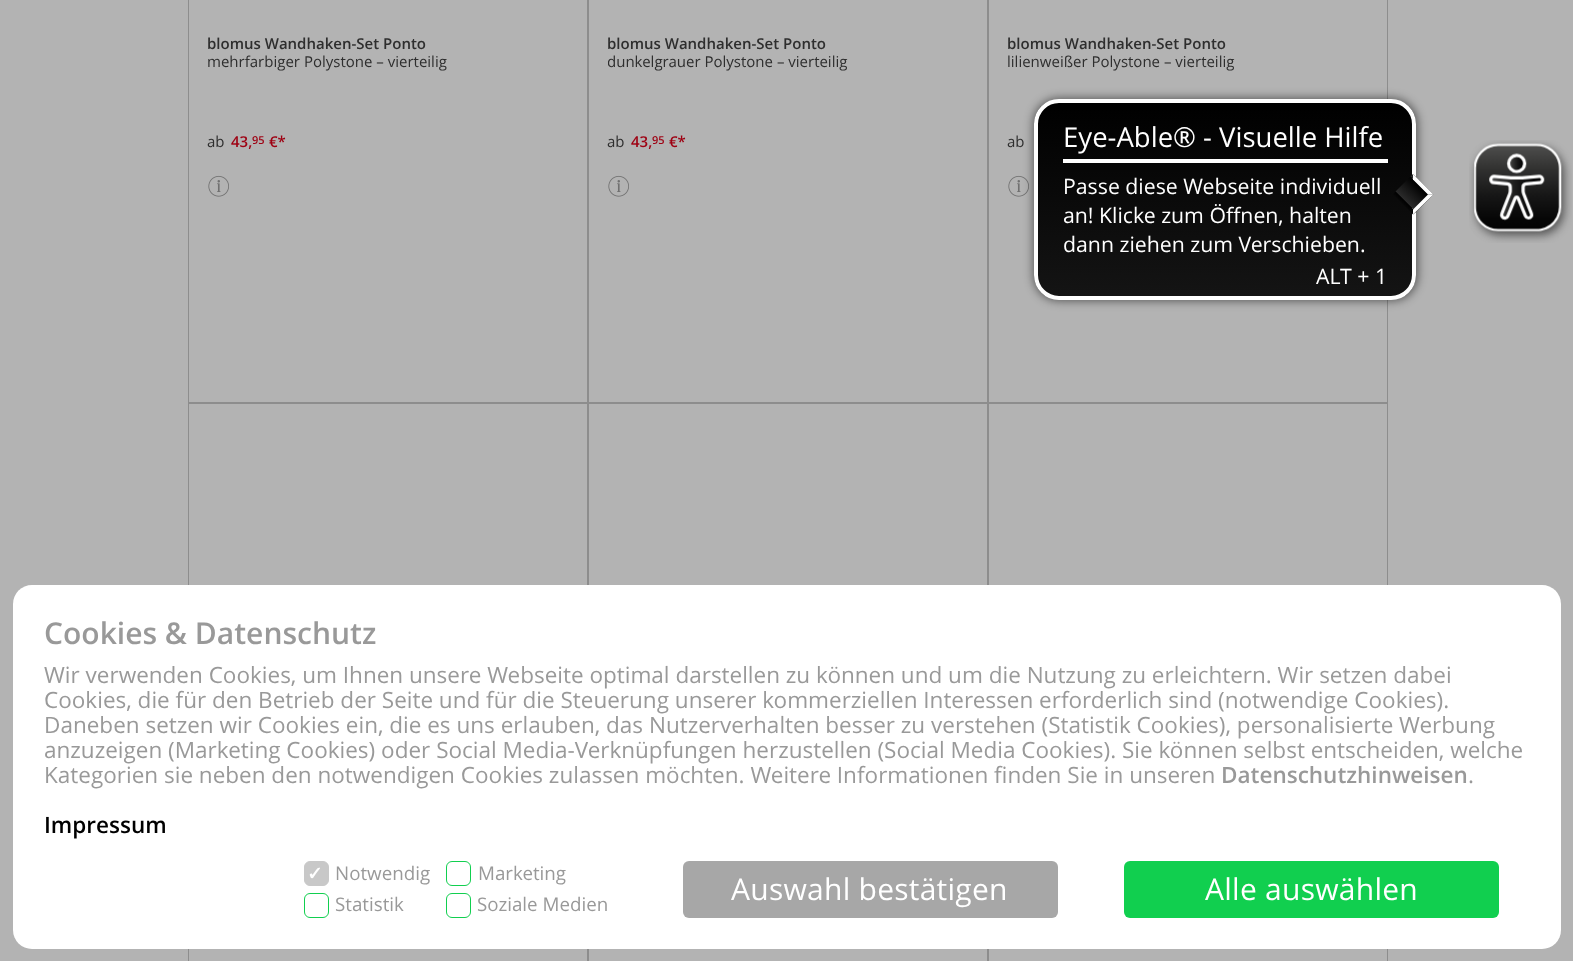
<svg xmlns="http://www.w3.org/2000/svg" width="1573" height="961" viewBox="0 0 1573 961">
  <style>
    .t1 { font: 600 15px Open Sans; fill: #2e2e2e; }
    .t2 { font: 15px Open Sans; fill: #2e2e2e; }
    .t3 { font: 600 15px Open Sans; fill: #9e0012; }
    .t4 { font: 600 11px Open Sans; fill: #9e0012; }
    .t5 { font: 27.5px Open Sans; fill: #fff; }
    .t6 { font: 21.25px Open Sans; fill: #fff; }
    .t7 { font: 600 30px Open Sans; fill: #999; }
    .t8 { font: 22.5px Open Sans; fill: #999; }
    .t9 { font: 600 22.5px Open Sans; fill: #999; }
    .t10 { font: 600 22.5px Open Sans; fill: #000; }
    .t11 { font: bold 18.75px DejaVu Sans; fill: #fff; }
    .t12 { font: 18.75px Open Sans; fill: #999; }
    .t13 { font: 30px Open Sans; letter-spacing: 0.25px; fill: #fff; }
  </style>
  <defs>
    <clipPath id="clip1"><rect x="608" y="53" width="360" height="18"/></clipPath>
    <clipPath id="clip2"><rect x="1034" y="99" width="382" height="201" rx="25"/></clipPath>
    <linearGradient id="g1" gradientUnits="userSpaceOnUse" x1="1225" y1="102" x2="1225" y2="296"><stop offset="0" stop-color="#000"/><stop offset="1" stop-color="#141414"/></linearGradient>
    <linearGradient id="g2" gradientUnits="userSpaceOnUse" x1="1436" y1="172" x2="1421" y2="187"><stop offset="0" stop-color="#000"/><stop offset="1" stop-color="#2b2b2b"/></linearGradient>
    <linearGradient id="g3" gradientUnits="userSpaceOnUse" x1="1421" y1="187" x2="1406" y2="202"><stop offset="0" stop-color="#000"/><stop offset="1" stop-color="#2b2b2b"/></linearGradient>
    <linearGradient id="g4" gradientUnits="userSpaceOnUse" x1="1406" y1="202" x2="1391" y2="217"><stop offset="0" stop-color="#000"/><stop offset="1" stop-color="#2b2b2b"/></linearGradient>
  </defs>
  <rect width="100%" height="100%" fill="#b3b3b3"/>
  <rect x="188.5" y="-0.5" width="399" height="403" fill="none" stroke="#8d8d8d"/>
  <text x="207" y="49" class="t1">blomus Wandhaken-Set Ponto</text>
  <text x="207" y="67" class="t2">mehrfarbiger Polystone – vierteilig</text>
  <text x="207" y="147" class="t2">ab</text>
  <text x="231" y="147" class="t3">43,</text>
  <text x="252" y="144" class="t4">95</text>
  <text x="269" y="147" class="t3">€*</text>
  <image x="208" y="175" width="21" height="22" href="images/1.png"/>
  <rect x="588.5" y="-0.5" width="399" height="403" fill="none" stroke="#8d8d8d"/>
  <text x="607" y="49" class="t1">blomus Wandhaken-Set Ponto</text>
  <g clip-path="url(#clip1)">
    <text x="607" y="67" class="t2">dunkelgrauer Polystone – vierteilig</text>
  </g>
  <text x="607" y="147" class="t2">ab</text>
  <text x="631" y="147" class="t3">43,</text>
  <text x="652" y="144" class="t4">95</text>
  <text x="669" y="147" class="t3">€*</text>
  <image x="608" y="175" width="21" height="22" href="images/1.png"/>
  <rect x="988.5" y="-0.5" width="399" height="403" fill="none" stroke="#8d8d8d"/>
  <text x="1007" y="49" class="t1">blomus Wandhaken-Set Ponto</text>
  <text x="1007" y="67" class="t2">lilienweißer Polystone – vierteilig</text>
  <text x="1007" y="147" class="t2">ab</text>
  <image x="1008" y="175" width="21" height="22" href="images/1.png"/>
  <rect x="188.5" y="403.5" width="399" height="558" fill="none" stroke="#8d8d8d"/>
  <rect x="588.5" y="403.5" width="399" height="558" fill="none" stroke="#8d8d8d"/>
  <rect x="988.5" y="403.5" width="399" height="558" fill="none" stroke="#8d8d8d"/>
  <rect x="1033" y="98" width="385" height="203" rx="26" fill="#00000080" filter="blur(5px)"/>
  <g clip-path="url(#clip2)">
    <rect x="1034" y="103" width="382" height="193" fill="url(#g1)"/>
  </g>
  <rect x="1036" y="101" width="378" height="197" rx="23" fill="none" stroke="#fff" stroke-width="4"/>
  <rect x="1063" y="159" width="325" height="4" fill="#fff"/>
  <text x="1063" y="147" class="t5">Eye-Able® - Visuelle Hilfe</text>
  <text x="1063" y="194" class="t6">Passe diese Webseite individuell</text>
  <text x="1063" y="223" class="t6">an! Klicke zum Öffnen, halten</text>
  <text x="1063" y="252" class="t6">dann ziehen zum Verschieben.</text>
  <path d="M1413 174L1433.5 194.5L1431 197L1410.5 176.5Z" fill="url(#g2)"/>
  <path d="M1395.5 191.5L1410.5 176.5L1431 197L1416 212Z" fill="url(#g3)"/>
  <path d="M1416 212L1413 214.5L1393 194.5L1395.5 191.5Z" fill="url(#g4)"/>
  <path d="M1413 174L1433.5 194.5H1428L1413 179.5Z" fill="#fff"/>
  <path d="M1433.5 194.5L1413 214.5V209.5L1428 194.5Z" fill="#fff"/>
  <text x="1316" y="284" class="t6">ALT + 1</text>
  <image x="1469" y="140" width="103" height="103" href="images/2.png"/>
  <rect x="13" y="585" width="1548" height="364" rx="19" fill="#fff"/>
  <text x="44" y="644" class="t7">Cookies &amp; Datenschutz</text>
  <text x="44" y="683" class="t8">Wir verwenden Cookies, um Ihnen unsere Webseite optimal darstellen zu können und um die Nutzung zu erleichtern. Wir setzen dabei</text>
  <text x="44" y="708" class="t8">Cookies, die für den Betrieb der Seite und für die Steuerung unserer kommerziellen Interessen erforderlich sind (notwendige Cookies).</text>
  <text x="44" y="733" class="t8">Daneben setzen wir Cookies ein, die es uns erlauben, das Nutzerverhalten besser zu verstehen (Statistik Cookies), personalisierte Werbung</text>
  <text x="44" y="758" class="t8">anzuzeigen (Marketing Cookies) oder Social Media-Verknüpfungen herzustellen (Social Media Cookies). Sie können selbst entscheiden, welche</text>
  <text x="44" y="783" class="t8">Kategorien sie neben den notwendigen Cookies zulassen möchten. Weitere Informationen finden Sie in unseren</text>
  <text x="1221" y="783" class="t9">Datenschutzhinweisen</text>
  <text x="1468" y="783" class="t8">.</text>
  <text x="44" y="833" class="t10">Impressum</text>
  <rect x="304.5" y="861.5" width="24" height="24" rx="5.5" fill="#c8c8c8" stroke="#c8c8c8"/>
  <text x="307" y="880" class="t11">✓</text>
  <text x="335" y="880" class="t12">Notwendig</text>
  <rect x="446.5" y="861.5" width="24" height="24" rx="5.5" fill="none" stroke="#11cf4f"/>
  <text x="478" y="880" class="t12">Marketing</text>
  <rect x="304.5" y="893.5" width="24" height="24" rx="5.5" fill="none" stroke="#11cf4f"/>
  <text x="335" y="911" class="t12">Statistik</text>
  <rect x="446.5" y="893.5" width="24" height="24" rx="5.5" fill="none" stroke="#11cf4f"/>
  <text x="477" y="911" class="t12">Soziale Medien</text>
  <rect x="683" y="861" width="375" height="57" rx="6" fill="#a7a7a7"/>
  <text x="731" y="900" class="t13">Auswahl bestätigen</text>
  <rect x="1124" y="861" width="375" height="57" rx="6" fill="#11cf4f"/>
  <text x="1205" y="900" class="t13">Alle auswählen</text>
</svg>
